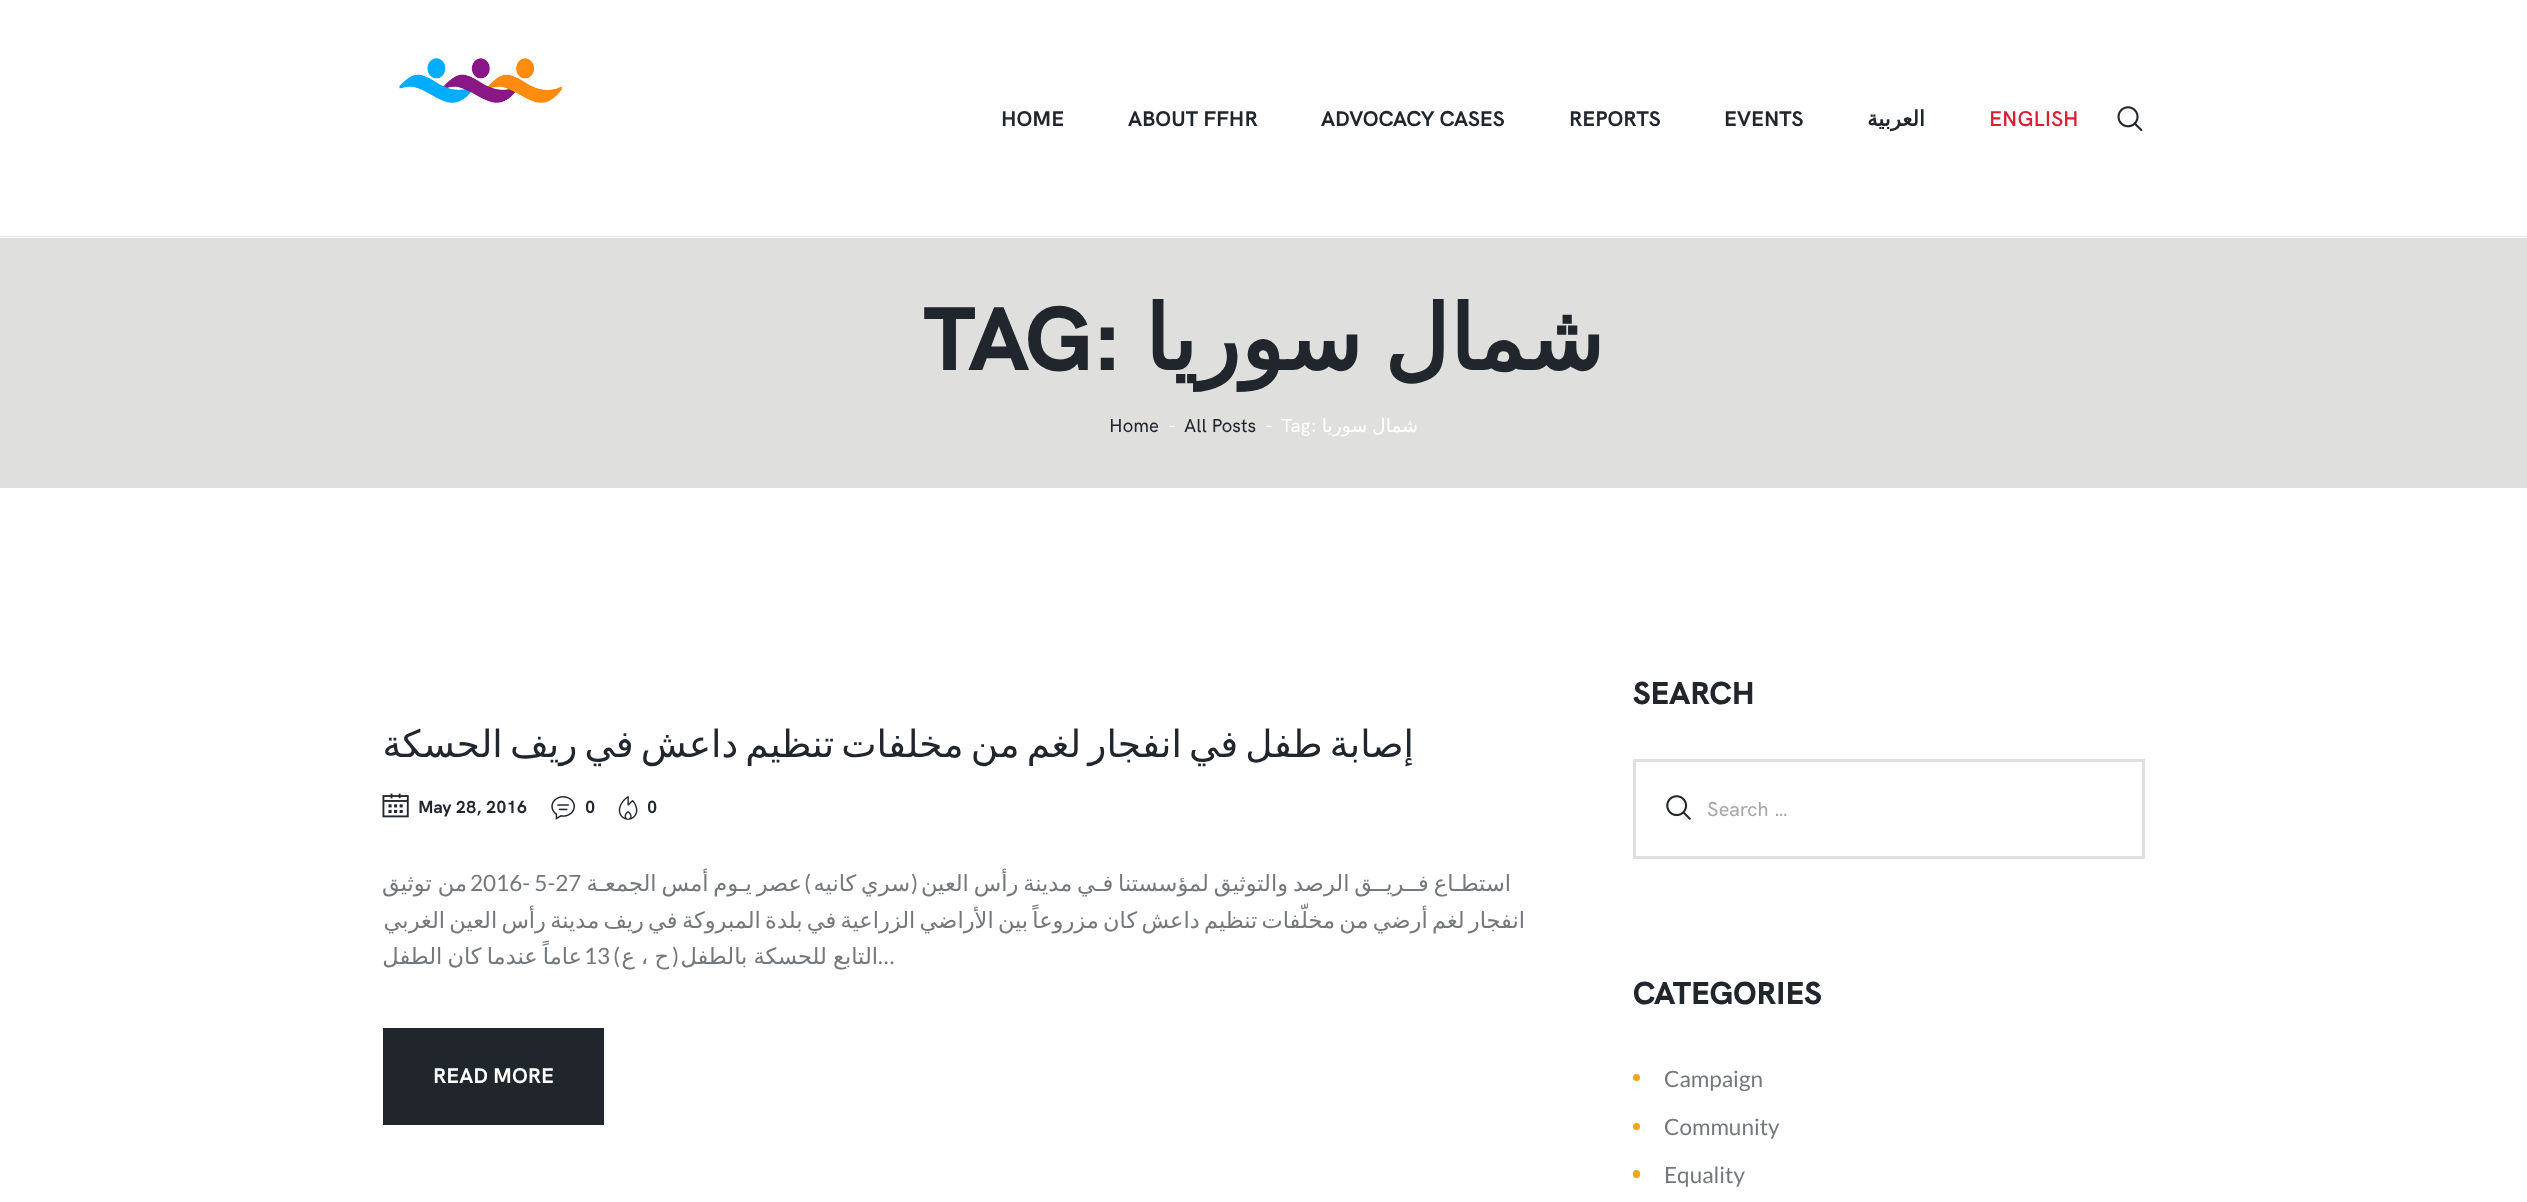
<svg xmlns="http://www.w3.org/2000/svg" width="2527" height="1202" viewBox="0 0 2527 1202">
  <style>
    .t1 { font: 600 21.25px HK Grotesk; fill: #d81e32; }
    .t2 { font: bold 21.25px DejaVu Sans; direction: rtl; fill: #21262c; }
    .t3 { font: bold 21.25px HK Grotesk; fill: #21262c; }
    .t4 { font: bold 90px DejaVu Sans; direction: rtl; fill: #21262c; }
    .t5 { font: 800 90px HK Grotesk; fill: #21262c; }
    .t6 { font: 18.75px DejaVu Sans; direction: rtl; fill: #fff; }
    .t7 { font: 500 18.75px HK Grotesk; fill: #fff; }
    .t8 { font: 500 18.75px HK Grotesk; fill: #21262c; }
    .t9 { font: 800 31.5px HK Grotesk; fill: #21262c; }
    .t10 { font: 500 20px HK Grotesk; fill: #a6a7aa; }
    .t11 { font: 22.5px Lato; fill: #75787b; }
    .t12 { font: 37.5px DejaVu Sans; direction: rtl; fill: #21262c; }
    .t13 { font: bold 17.5px HK Grotesk; fill: #21262c; }
    .t14 { font: 22.5px DejaVu Sans; direction: rtl; fill: #75787b; }
    .t15 { font: 22.5px Lato; direction: rtl; fill: #75787b; }
    .t16 { font: bold 21.25px HK Grotesk; fill: #fff; }
  </style>
  <rect width="100%" height="100%" fill="#fff"/>
  <rect x="0" y="236" width="2527" height="1" fill="#e8e8e8"/>
  <image x="399" y="58" width="163" height="45" href="images/1.png"/>
  <image x="2117" y="106" width="26" height="26" href="images/2.png"/>
  <text x="1989" y="126" class="t1">ENGLISH</text>
  <text x="1925" y="126" class="t2">العربية</text>
  <text x="1724" y="126" class="t3">EVENTS</text>
  <text x="1569" y="126" class="t3">REPORTS</text>
  <text x="1321" y="126" class="t3">ADVOCACY CASES</text>
  <text x="1128" y="126" class="t3">ABOUT FFHR</text>
  <text x="1001" y="126" class="t3">HOME</text>
  <rect x="0" y="238" width="2527" height="250" fill="#dfdfdd"/>
  <text x="1604" y="370" word-spacing="-7" class="t4">شمال سوريا</text>
  <text x="924" y="370" class="t5">TAG:</text>
  <text x="1418" y="432" word-spacing="-1" class="t6">شمال سوريا</text>
  <text x="1281" y="432" class="t7">Tag:</text>
  <text x="1265" y="432" class="t7">-</text>
  <text x="1184" y="432" class="t8">All Posts</text>
  <text x="1168" y="432" class="t7">-</text>
  <text x="1109" y="432" class="t8">‌Home</text>
  <text x="1633" y="704" class="t9">SEARCH</text>
  <rect x="1634.5" y="760.5" width="509" height="97" fill="none" stroke="#dfdfdd" stroke-width="3"/>
  <text x="1707" y="816" class="t10">Search …</text>
  <image x="1666" y="795" width="25" height="25" href="images/3.png"/>
  <text x="1633" y="1004" class="t9">CATEGORIES</text>
  <text x="1664" y="1087" class="t11">Campaign</text>
  <circle cx="1636.5" cy="1077.5" r="3.5" fill="#efa718"/>
  <text x="1664" y="1135" class="t11">Community</text>
  <circle cx="1636.5" cy="1126.5" r="3.5" fill="#efa718"/>
  <text x="1664" y="1183" class="t11">Equality</text>
  <rect x="1633" y="1170" width="7" height="8" rx="3.5" fill="#efa718"/>
  <text x="1414" y="757" word-spacing="-4.75" class="t12">إصابة طفل في انفجار لغم من مخلفات تنظيم داعش في ريف الحسكة</text>
  <text x="647" y="813" class="t13">0</text>
  <image x="618" y="796" width="20" height="24" href="images/4.png"/>
  <text x="585" y="813" class="t13">0</text>
  <image x="551" y="796" width="24" height="24" href="images/5.png"/>
  <text x="418" y="813" class="t13">May 28, 2016</text>
  <image x="382" y="793" width="27" height="25" href="images/6.png"/>
  <text x="1511" y="891" word-spacing="-2.25" class="t14">استطـاع فــريــق الرصد والتوثيق لمؤسستنا فـي مدينة رأس العين</text>
  <text x="802" y="891" word-spacing="-2.25" class="t14">عصر يـوم أمس الجمعـة</text>
  <text x="918" y="891" class="t15">(</text>
  <text x="910" y="891" word-spacing="-2.25" class="t14">سري كانيه</text>
  <text x="811" y="891" class="t15">)</text>
  <text x="470" y="891" class="t11">2016- 5-27</text>
  <text x="467" y="891" word-spacing="-1" class="t14">من توثيق</text>
  <text x="1525" y="928" word-spacing="-2.9" class="t14">انفجار لغم أرضي من مخلّفات تنظيم داعش كان مزروعاً بين الأراضي الزراعية في بلدة المبروكة في ريف مدينة رأس العين الغربي</text>
  <text x="878" y="964" word-spacing="-1" class="t14">التابع للحسكة بالطفل</text>
  <text x="878" y="964" class="t11">…</text>
  <text x="679" y="964" class="t15">(</text>
  <text x="669" y="964" word-spacing="-1" class="t14">ح ، ع</text>
  <text x="620" y="964" class="t15">)</text>
  <text x="584" y="964" class="t11">13</text>
  <text x="582" y="964" word-spacing="-2" class="t14">عاماً عندما كان الطفل</text>
  <rect x="383" y="1028" width="221" height="97" fill="#21262c"/>
  <text x="433" y="1083" class="t16">READ MORE</text>
</svg>
